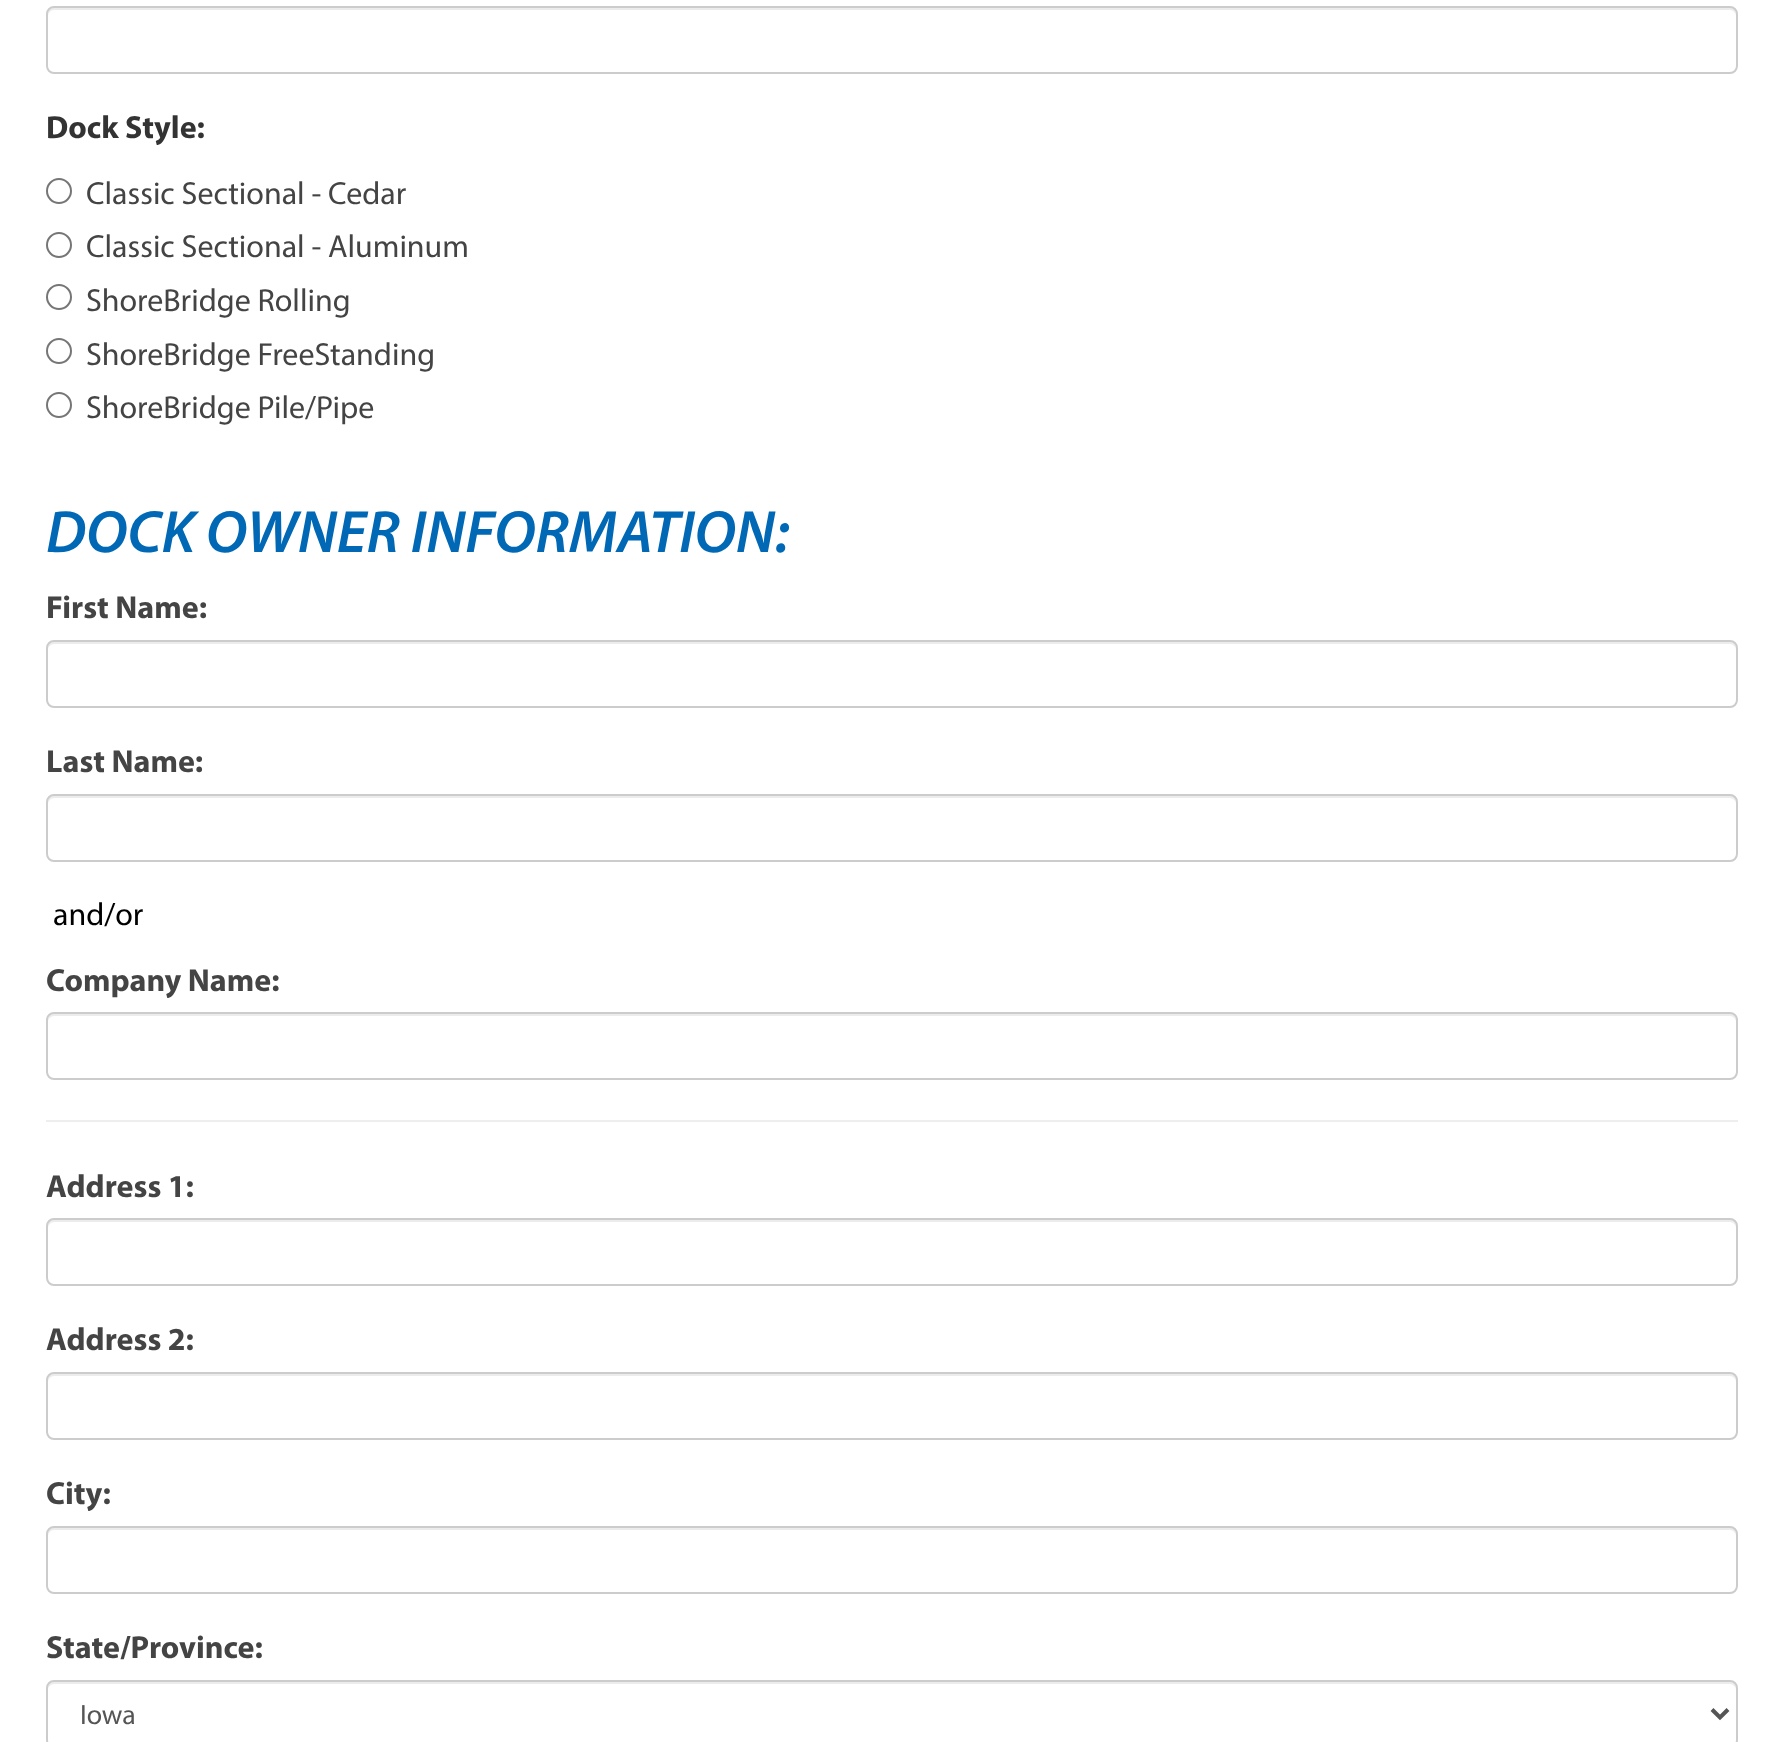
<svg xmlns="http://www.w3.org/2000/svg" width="1784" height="1742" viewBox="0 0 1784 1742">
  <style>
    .t1 { font: bold 32px Myriad; fill: #333; }
    .t2 { font: 32px Myriad; fill: #444; }
    .t3 { font: italic 600 60px Myriad; fill: #0068b5; }
    .t4 { font: bold 32px Myriad; fill: #444; }
    .t5 { font: 32px Myriad; fill: #000; }
    .t6 { font: 28px Myriad; fill: #555; }
  </style>
  <rect width="100%" height="100%" fill="#fff"/>
  <path d="M54 10H1730C1733 10 1736 13 1736 16C1736 12 1735 8 1730 8H54C49 8 48 12 48 16C48 13 51 10 54 10Z" fill="#ececec"/>
  <rect x="47" y="7" width="1690" height="66" rx="7" fill="none" stroke="#ccc" stroke-width="2"/>
  <text x="46" y="138" class="t1">Dock Style:</text>
  <circle cx="59" cy="191" r="12" fill="none" stroke="#767676" stroke-width="2"/>
  <text x="86" y="204" class="t2">Classic Sectional - Cedar</text>
  <circle cx="59" cy="245" r="12" fill="none" stroke="#767676" stroke-width="2"/>
  <text x="86" y="257" class="t2">Classic Sectional - Aluminum</text>
  <circle cx="59" cy="297" r="12" fill="none" stroke="#767676" stroke-width="2"/>
  <text x="86" y="311" class="t2">ShoreBridge Rolling</text>
  <circle cx="59" cy="351" r="12" fill="none" stroke="#767676" stroke-width="2"/>
  <text x="86" y="365" class="t2">ShoreBridge FreeStanding</text>
  <circle cx="59" cy="405" r="12" fill="none" stroke="#767676" stroke-width="2"/>
  <text x="86" y="418" class="t2">ShoreBridge Pile/Pipe</text>
  <text x="46" y="552" class="t3">DOCK OWNER INFORMATION:</text>
  <text x="46" y="618" class="t4">First Name:</text>
  <path d="M54 644H1730C1733 644 1736 647 1736 650C1736 646 1735 642 1730 642H54C49 642 48 646 48 650C48 647 51 644 54 644Z" fill="#ececec"/>
  <rect x="47" y="641" width="1690" height="66" rx="7" fill="none" stroke="#ccc" stroke-width="2"/>
  <text x="46" y="772" class="t4">Last Name:</text>
  <path d="M54 798H1730C1733 798 1736 801 1736 804C1736 800 1735 796 1730 796H54C49 796 48 800 48 804C48 801 51 798 54 798Z" fill="#ececec"/>
  <rect x="47" y="795" width="1690" height="66" rx="7" fill="none" stroke="#ccc" stroke-width="2"/>
  <text x="53" y="925" class="t5">and/or</text>
  <text x="46" y="991" class="t4">Company Name:</text>
  <path d="M54 1016H1730C1733 1016 1736 1019 1736 1022C1736 1018 1735 1014 1730 1014H54C49 1014 48 1018 48 1022C48 1019 51 1016 54 1016Z" fill="#ececec"/>
  <rect x="47" y="1013" width="1690" height="66" rx="7" fill="none" stroke="#ccc" stroke-width="2"/>
  <rect x="46" y="1120" width="1692" height="2" fill="#eee"/>
  <text x="46" y="1197" class="t4">Address 1:</text>
  <path d="M54 1222H1730C1733 1222 1736 1225 1736 1228C1736 1224 1735 1220 1730 1220H54C49 1220 48 1224 48 1228C48 1225 51 1222 54 1222Z" fill="#ececec"/>
  <rect x="47" y="1219" width="1690" height="66" rx="7" fill="none" stroke="#ccc" stroke-width="2"/>
  <text x="46" y="1350" class="t4">Address 2:</text>
  <path d="M54 1376H1730C1733 1376 1736 1379 1736 1382C1736 1378 1735 1374 1730 1374H54C49 1374 48 1378 48 1382C48 1379 51 1376 54 1376Z" fill="#ececec"/>
  <rect x="47" y="1373" width="1690" height="66" rx="7" fill="none" stroke="#ccc" stroke-width="2"/>
  <text x="46" y="1504" class="t4">City:</text>
  <path d="M54 1530H1730C1733 1530 1736 1533 1736 1536C1736 1532 1735 1528 1730 1528H54C49 1528 48 1532 48 1536C48 1533 51 1530 54 1530Z" fill="#ececec"/>
  <rect x="47" y="1527" width="1690" height="66" rx="7" fill="none" stroke="#ccc" stroke-width="2"/>
  <text x="46" y="1658" class="t4">State/Province:</text>
  <path d="M54 1684H1730C1733 1684 1736 1687 1736 1690C1736 1686 1735 1682 1730 1682H54C49 1682 48 1686 48 1690C48 1687 51 1684 54 1684Z" fill="#ececec"/>
  <rect x="47" y="1681" width="1690" height="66" rx="7" fill="none" stroke="#ccc" stroke-width="2"/>
  <path d="M1712 1709.5L1720 1717.5L1728 1709.5" fill="none" stroke="#555" stroke-width="4"/>
  <text x="80" y="1724" class="t6">Iowa</text>
</svg>
